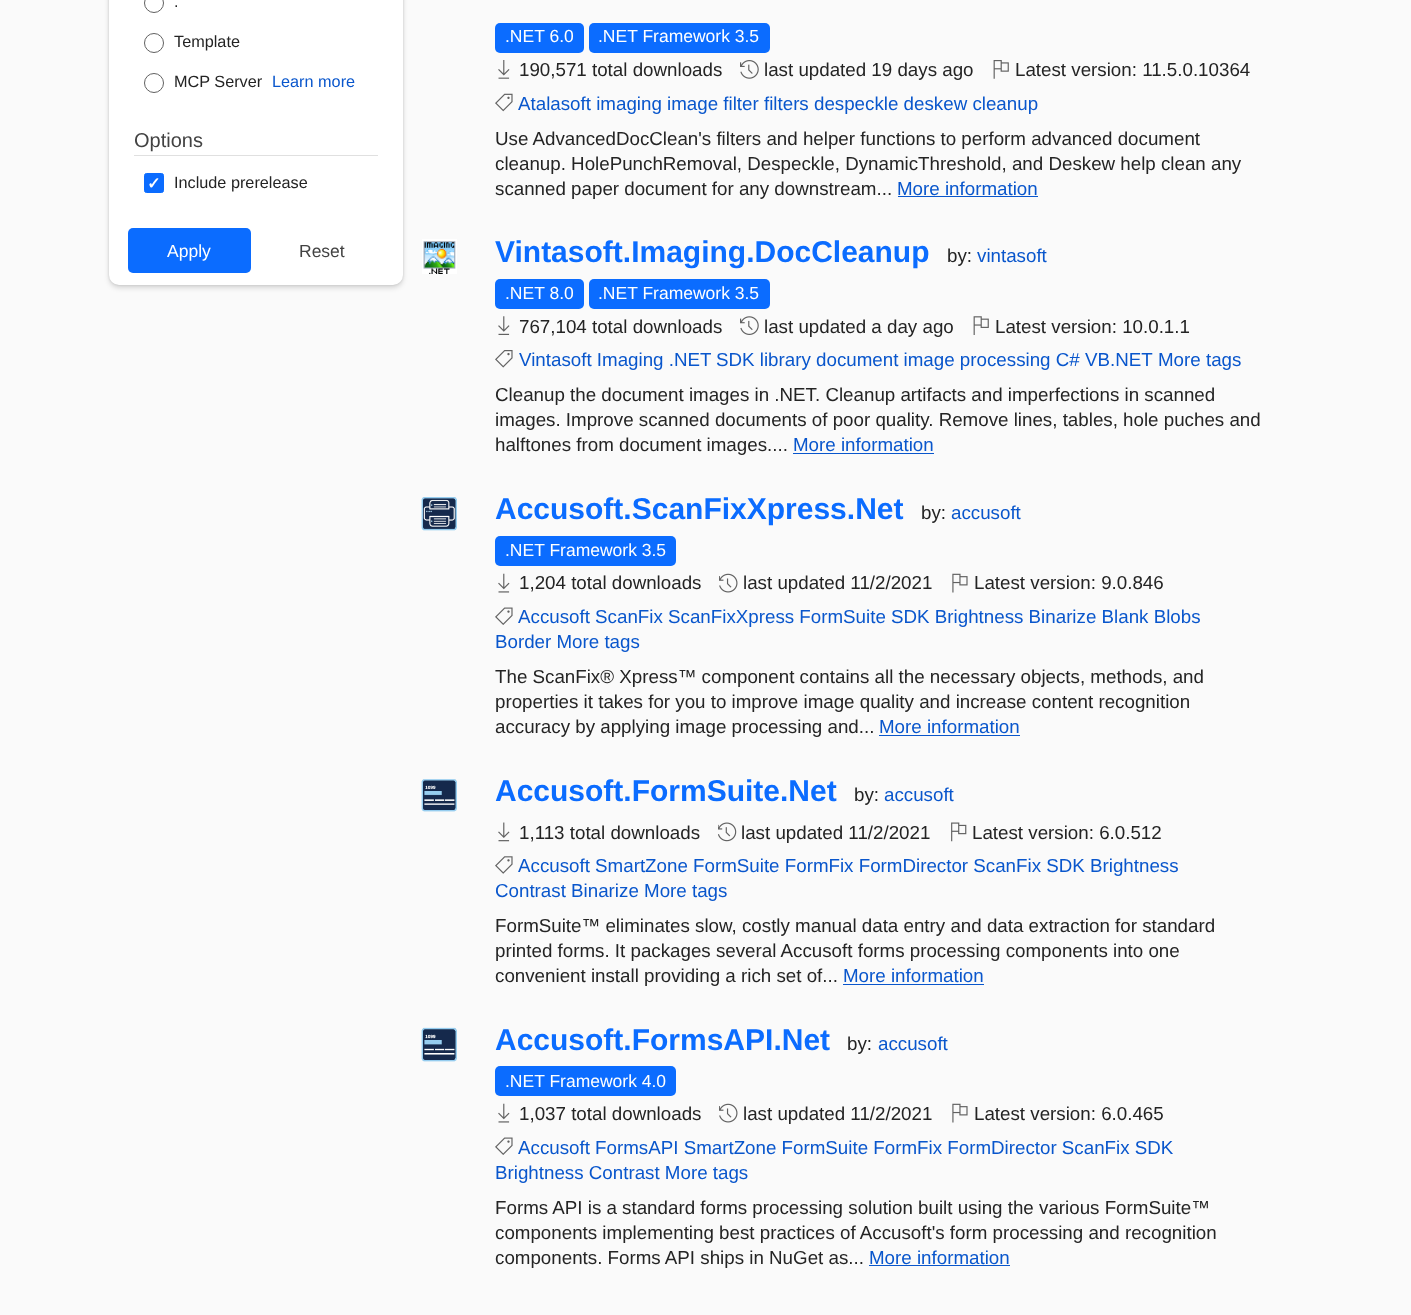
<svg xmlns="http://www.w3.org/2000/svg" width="1411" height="1315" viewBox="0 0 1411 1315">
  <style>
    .t1 { font: 16.25px Liberation Sans; fill: #242424; }
    .t2 { font: 16.25px Liberation Sans; fill: #0956cc; }
    .t3 { font: 20px Liberation Sans; fill: #424242; }
    .t4 { font: bold 16.25px DejaVu Sans; fill: #fff; }
    .t5 { font: 17.5px Liberation Sans; fill: #fff; }
    .t6 { font: 17.5px Liberation Sans; fill: #424242; }
    .t7 { font: 18.75px Liberation Sans; fill: #242424; }
    .t8 { font: 18.75px Liberation Sans; fill: #0956cc; }
    .t9 { font: bold 30px Liberation Sans; fill: #0b6cff; }
  </style>
  <rect width="100%" height="100%" fill="#fafafa"/>
  <rect x="109" y="-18" width="294" height="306" rx="10" fill="#00000024" filter="blur(2.5px)"/>
  <rect x="109" y="-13" width="294" height="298" rx="10" fill="#0000001f" filter="blur(1px)"/>
  <rect x="109" y="-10" width="294" height="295" rx="10" fill="#fff"/>
  <circle cx="154" cy="3" r="9.5" fill="none" stroke="#616161"/>
  <text x="174" y="7" class="t1">.</text>
  <circle cx="154" cy="43" r="9.5" fill="none" stroke="#616161"/>
  <text x="174" y="47" class="t1">Template</text>
  <circle cx="154" cy="83" r="9.5" fill="none" stroke="#616161"/>
  <text x="174" y="87" class="t1">MCP Server</text>
  <text x="272" y="87" class="t2">Learn more</text>
  <rect x="134" y="155" width="244" height="1" fill="#e0e0e0"/>
  <text x="134" y="147" class="t3">Options</text>
  <rect x="144.5" y="173.5" width="19" height="19" rx="2" fill="#0b6cff" stroke="#0b6cff"/>
  <text x="147" y="189" class="t4">✓</text>
  <text x="174" y="188" class="t1">Include prerelease</text>
  <rect x="128" y="228" width="123" height="45" rx="5" fill="#0b6cff"/>
  <text x="167" y="257" class="t5">Apply</text>
  <text x="299" y="257" class="t6">Reset</text>
  <rect x="495" y="23" width="89" height="30" rx="5" fill="#0b6cff"/>
  <text x="505" y="42" class="t5">.NET 6.0</text>
  <rect x="589" y="23" width="181" height="30" rx="5" fill="#0b6cff"/>
  <text x="598" y="42" class="t5">.NET Framework 3.5</text>
  <image x="498" y="60" width="12" height="19" href="images/1.png"/>
  <text x="519" y="76" class="t7">190,571 total downloads</text>
  <image x="740" y="60" width="19" height="19" href="images/2.png"/>
  <text x="764" y="76" class="t7">last updated 19 days ago</text>
  <image x="993" y="60" width="16" height="19" href="images/3.png"/>
  <text x="1015" y="76" class="t7">Latest version: 11.5.0.10364</text>
  <image x="495" y="93" width="18" height="19" href="images/4.png"/>
  <text x="518" y="110" class="t8">Atalasoft imaging image filter filters despeckle deskew cleanup</text>
  <text x="495" y="145" class="t7">Use AdvancedDocClean's filters and helper functions to perform advanced document</text>
  <text x="495" y="170" class="t7">cleanup. HolePunchRemoval, Despeckle, DynamicThreshold, and Deskew help clean any</text>
  <text x="495" y="195" class="t7">scanned paper document for any downstream...</text>
  <text x="897" y="195" class="t8">More information</text>
  <rect x="898" y="196" width="140" height="1" fill="#0956cc"/>
  <image x="422" y="239" width="35" height="35" href="images/5.png"/>
  <text x="495" y="262" class="t9">Vintasoft.Imaging.DocCleanup</text>
  <text x="947" y="262" class="t7">by:</text>
  <text x="977" y="262" class="t8">vintasoft</text>
  <rect x="495" y="279" width="89" height="30" rx="5" fill="#0b6cff"/>
  <text x="505" y="299" class="t5">.NET 8.0</text>
  <rect x="589" y="279" width="181" height="30" rx="5" fill="#0b6cff"/>
  <text x="598" y="299" class="t5">.NET Framework 3.5</text>
  <image x="498" y="316" width="12" height="19" href="images/6.png"/>
  <text x="519" y="333" class="t7">767,104 total downloads</text>
  <image x="740" y="316" width="19" height="19" href="images/7.png"/>
  <text x="764" y="333" class="t7">last updated a day ago</text>
  <image x="973" y="316" width="16" height="19" href="images/8.png"/>
  <text x="995" y="333" class="t7">Latest version: 10.0.1.1</text>
  <image x="495" y="350" width="18" height="18" href="images/9.png"/>
  <text x="519" y="366" class="t8">Vintasoft Imaging .NET</text>
  <text x="716" y="366" class="t8">SDK library document image processing C# VB.NET</text>
  <text x="1158" y="366" class="t8">More tags</text>
  <text x="495" y="401" class="t7">Cleanup the document images in .NET. Cleanup artifacts and imperfections in scanned</text>
  <text x="495" y="426" class="t7">images. Improve scanned documents of poor quality. Remove lines, tables, hole puches and</text>
  <text x="495" y="451" class="t7">halftones from document images....</text>
  <text x="793" y="451" class="t8">More information</text>
  <rect x="793" y="453" width="141" height="1" fill="#0956cc"/>
  <image x="421" y="497" width="36" height="34" href="images/10.png"/>
  <text x="495" y="519" class="t9">Accusoft.ScanFixXpress.Net</text>
  <text x="921" y="519" class="t7">by:</text>
  <text x="951" y="519" class="t8">accusoft</text>
  <rect x="495" y="536" width="181" height="30" rx="5" fill="#0b6cff"/>
  <text x="505" y="556" class="t5">.NET Framework 3.5</text>
  <image x="498" y="573" width="12" height="20" href="images/11.png"/>
  <text x="519" y="589" class="t7">1,204 total downloads</text>
  <image x="719" y="573" width="19" height="20" href="images/12.png"/>
  <text x="743" y="589" class="t7">last updated 11/2/2021</text>
  <image x="952" y="573" width="16" height="20" href="images/13.png"/>
  <text x="974" y="589" class="t7">Latest version: 9.0.846</text>
  <image x="495" y="607" width="18" height="18" href="images/14.png"/>
  <text x="518" y="623" class="t8">Accusoft ScanFix ScanFixXpress FormSuite SDK Brightness Binarize Blank Blobs</text>
  <text x="495" y="648" class="t8">Border More tags</text>
  <text x="495" y="683" class="t7">The ScanFix® Xpress™ component contains all the necessary objects, methods, and</text>
  <text x="495" y="708" class="t7">properties it takes for you to improve image quality and increase content recognition</text>
  <text x="495" y="733" class="t7">accuracy by applying image processing and...</text>
  <text x="879" y="733" class="t8">More information</text>
  <rect x="879" y="735" width="141" height="1" fill="#0956cc"/>
  <image x="421" y="779" width="36" height="33" href="images/15.png"/>
  <text x="495" y="801" class="t9">Accusoft.FormSuite.Net</text>
  <text x="854" y="801" class="t7">by:</text>
  <text x="884" y="801" class="t8">accusoft</text>
  <image x="498" y="822" width="12" height="20" href="images/16.png"/>
  <text x="519" y="839" class="t7">1,113 total downloads</text>
  <image x="718" y="822" width="19" height="20" href="images/17.png"/>
  <text x="741" y="839" class="t7">last updated 11/2/2021</text>
  <image x="951" y="822" width="16" height="20" href="images/18.png"/>
  <text x="972" y="839" class="t7">Latest version: 6.0.512</text>
  <image x="495" y="856" width="18" height="18" href="images/19.png"/>
  <text x="518" y="872" class="t8">Accusoft SmartZone FormSuite FormFix FormDirector ScanFix SDK Brightness</text>
  <text x="495" y="897" class="t8">Contrast Binarize More tags</text>
  <text x="495" y="932" class="t7">FormSuite™ eliminates slow, costly manual data entry and data extraction for standard</text>
  <text x="495" y="957" class="t7">printed forms. It packages several Accusoft forms processing components into one</text>
  <text x="495" y="982" class="t7">convenient install providing a rich set of...</text>
  <text x="843" y="982" class="t8">More information</text>
  <rect x="843" y="984" width="141" height="1" fill="#0956cc"/>
  <image x="421" y="1027" width="36" height="35" href="images/20.png"/>
  <text x="495" y="1050" class="t9">Accusoft.FormsAPI.Net</text>
  <text x="847" y="1050" class="t7">by:</text>
  <text x="878" y="1050" class="t8">accusoft</text>
  <rect x="495" y="1066" width="181" height="30" rx="5" fill="#0b6cff"/>
  <text x="505" y="1087" class="t5">.NET Framework 4.0</text>
  <image x="498" y="1103" width="12" height="20" href="images/11.png"/>
  <text x="519" y="1120" class="t7">1,037 total downloads</text>
  <image x="719" y="1103" width="19" height="20" href="images/12.png"/>
  <text x="743" y="1120" class="t7">last updated 11/2/2021</text>
  <image x="952" y="1103" width="16" height="20" href="images/13.png"/>
  <text x="974" y="1120" class="t7">Latest version: 6.0.465</text>
  <image x="495" y="1137" width="18" height="18" href="images/14.png"/>
  <text x="518" y="1154" class="t8">Accusoft FormsAPI SmartZone FormSuite FormFix FormDirector ScanFix SDK</text>
  <text x="495" y="1179" class="t8">Brightness Contrast More tags</text>
  <text x="495" y="1214" class="t7">Forms API is a standard forms processing solution built using the various FormSuite™</text>
  <text x="495" y="1239" class="t7">components implementing best practices of Accusoft's form processing and recognition</text>
  <text x="495" y="1264" class="t7">components. Forms API ships in NuGet as...</text>
  <text x="869" y="1264" class="t8">More information</text>
  <rect x="869" y="1265" width="141" height="1" fill="#0956cc"/>
</svg>
